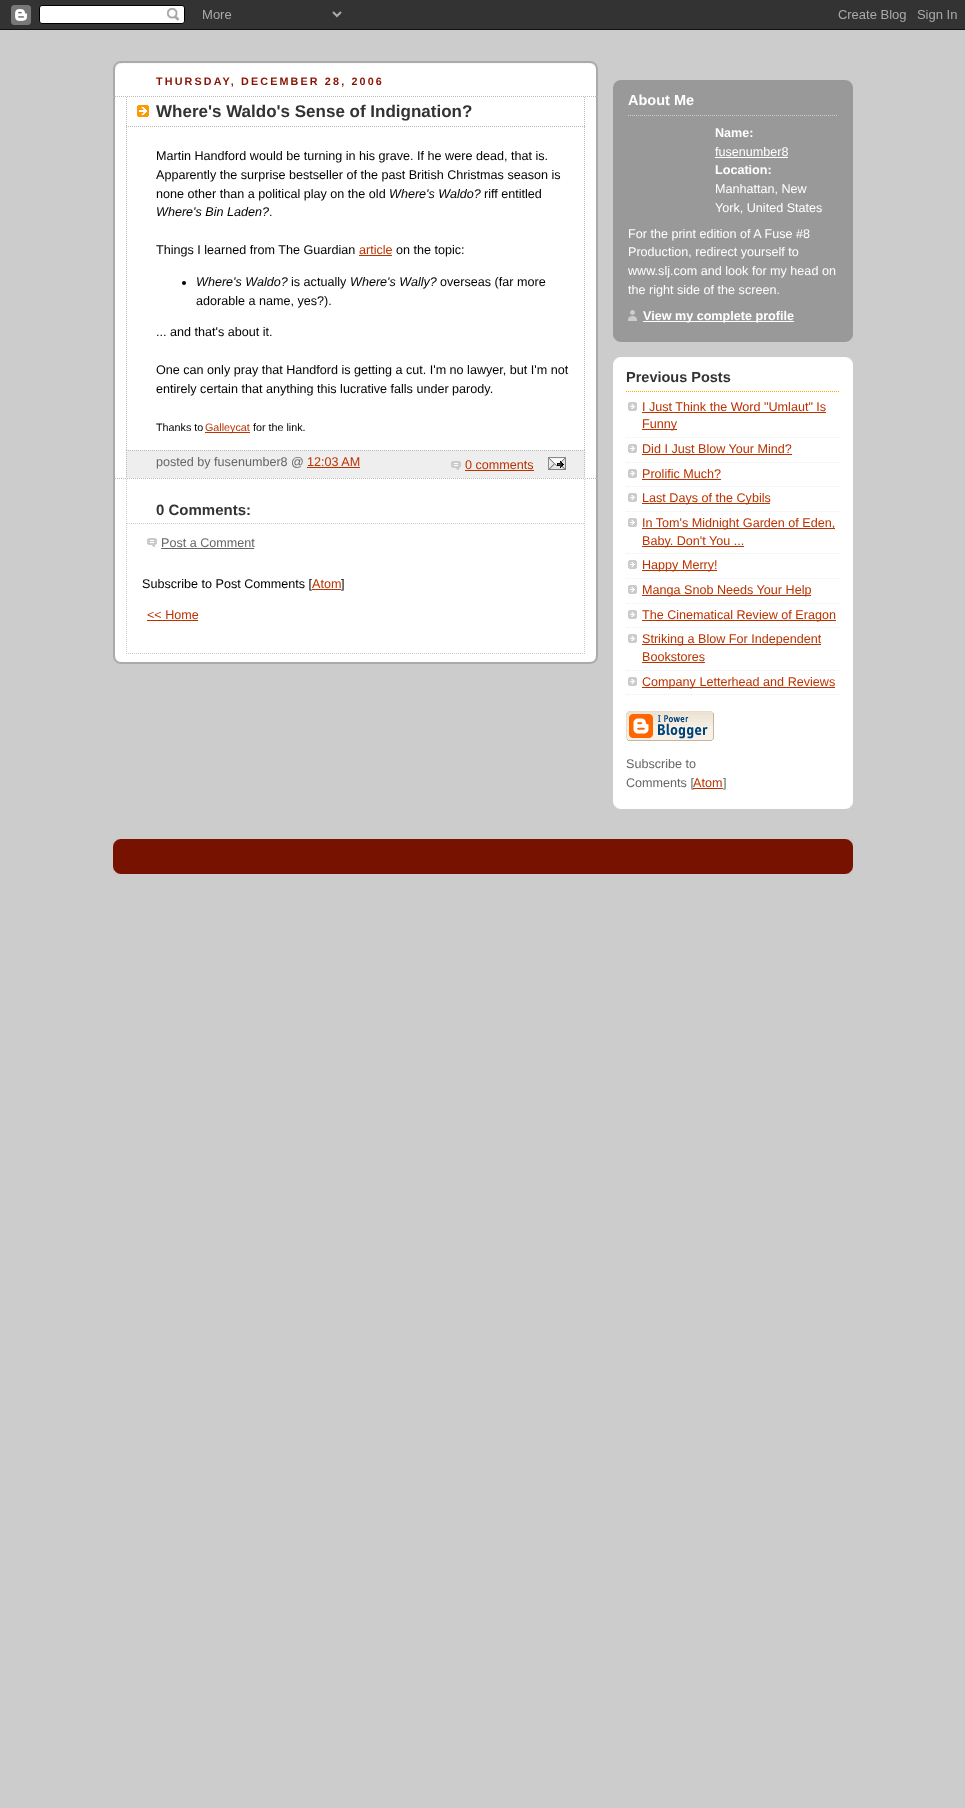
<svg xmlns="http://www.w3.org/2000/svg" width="965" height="1808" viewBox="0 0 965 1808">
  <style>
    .t1 { font: bold 10.75px Liberation Sans; letter-spacing: 2.15px; fill: #810; }
    .t2 { font: bold 17px Liberation Sans; fill: #333; }
    .t3 { font: 12.6px Liberation Sans; fill: #000; }
    .t4 { font: italic 12.6px Liberation Sans; fill: #000; }
    .t5 { font: 12.6px Liberation Sans; fill: #b30; }
    .t6 { font: 10.75px Liberation Sans; fill: #000; }
    .t7 { font: 10.75px Liberation Sans; fill: #b30; }
    .t8 { font: 12.6px Liberation Sans; fill: #666; }
    .t9 { font: bold 15px Liberation Sans; fill: #333; }
    .t10 { font: bold 14.5px Liberation Sans; fill: #fff; }
    .t11 { font: bold 12.6px Liberation Sans; fill: #fff; }
    .t12 { font: 12.6px Liberation Sans; fill: #fff; }
    .t13 { font: bold 14.5px Liberation Sans; fill: #333; }
  </style>
  <rect width="100%" height="100%" fill="#ccc"/>
  <image x="0" y="0" width="965" height="30" href="images/1.png"/>
  <rect x="115" y="63" width="481" height="599" fill="#fff"/>
  <image x="113" y="614" width="485" height="50" href="images/2.png"/>
  <image x="113" y="61" width="485" height="51" href="images/3.png"/>
  <image x="113" y="112" width="485" height="502" href="images/4.png"/>
  <text x="156" y="85" class="t1">THURSDAY, DECEMBER 28, 2006</text>
  <path d="M113 96.5H598" fill="none" stroke="#bbb" stroke-dasharray="1 1"/>
  <path d="M113 478.5H598" fill="none" stroke="#bbb" stroke-dasharray="1 1"/>
  <image x="137" y="105" width="12" height="12" href="images/5.png"/>
  <path d="M584.5 97V127" fill="none" stroke="#bbb" stroke-dasharray="1 1"/>
  <path d="M126 126.5H585" fill="none" stroke="#bbb" stroke-dasharray="1 1"/>
  <path d="M126.5 97V127" fill="none" stroke="#bbb" stroke-dasharray="1 1"/>
  <text x="156" y="117" class="t2">Where's Waldo's Sense of Indignation?</text>
  <path d="M584.5 127V450" fill="none" stroke="#bbb" stroke-dasharray="1 1"/>
  <path d="M126.5 127V450" fill="none" stroke="#bbb" stroke-dasharray="1 1"/>
  <text x="156" y="160" class="t3">Martin Handford would be turning in his grave. If he were dead, that is.</text>
  <text x="156" y="179" class="t3">Apparently the surprise bestseller of the past British Christmas season is</text>
  <text x="156" y="198" class="t3">none other than a political play on the old</text>
  <text x="389" y="198" class="t4">Where's Waldo?</text>
  <text x="484" y="198" class="t3">riff entitled</text>
  <text x="156" y="216" class="t4">Where's Bin Laden?</text>
  <text x="269" y="216" class="t3">.</text>
  <text x="156" y="254" class="t3">Things I learned from The Guardian</text>
  <text x="359" y="254" class="t5">article</text>
  <rect x="359" y="255" width="33" height="1" fill="#b30"/>
  <text x="396" y="254" class="t3">on the topic:</text>
  <circle cx="184" cy="283" r="2" fill="#000"/>
  <text x="196" y="286" class="t4">Where's Waldo?</text>
  <text x="291" y="286" class="t3">is actually</text>
  <text x="350" y="286" class="t4">Where's Wally?</text>
  <text x="440" y="286" class="t3">overseas (far more</text>
  <text x="196" y="305" class="t3">adorable a name, yes?).</text>
  <text x="156" y="336" class="t3">... and that's about it.</text>
  <text x="156" y="374" class="t3">One can only pray that Handford is getting a cut. I'm no lawyer, but I'm not</text>
  <text x="156" y="393" class="t3">entirely certain that anything this lucrative falls under parody.</text>
  <text x="156" y="431" class="t6">Thanks to</text>
  <rect x="205" y="432" width="45" height="1" fill="#b30"/>
  <text x="205" y="431" class="t7">Galleycat</text>
  <text x="253" y="431" class="t6">for the link.</text>
  <rect x="126" y="450" width="459" height="28" fill="#eee"/>
  <path d="M126 450.5H585" fill="none" stroke="#bbb" stroke-dasharray="1 1"/>
  <path d="M584.5 450V478" fill="none" stroke="#bbb" stroke-dasharray="1 1"/>
  <path d="M126.5 450V478" fill="none" stroke="#bbb" stroke-dasharray="1 1"/>
  <text x="156" y="466" class="t8">posted by fusenumber8 @</text>
  <text x="307" y="466" class="t5">12:03 AM</text>
  <rect x="307" y="467" width="53" height="1" fill="#b30"/>
  <image x="451" y="461" width="10" height="9" href="images/6.png"/>
  <text x="465" y="469" class="t5">0 comments</text>
  <rect x="465" y="470" width="69" height="1" fill="#b30"/>
  <image x="548" y="457" width="18" height="13" href="images/7.png"/>
  <path d="M584.5 479V654" fill="none" stroke="#ccc" stroke-dasharray="1 1"/>
  <path d="M126 653.5H585" fill="none" stroke="#ccc" stroke-dasharray="1 1"/>
  <path d="M126.5 479V654" fill="none" stroke="#ccc" stroke-dasharray="1 1"/>
  <path d="M127 523.5H584" fill="none" stroke="#ccc" stroke-dasharray="1 1"/>
  <text x="156" y="515" class="t9">0 Comments:</text>
  <image x="147" y="538" width="10" height="9" href="images/8.png"/>
  <text x="161" y="547" class="t8">Post a Comment</text>
  <rect x="161" y="548" width="93" height="1" fill="#666"/>
  <text x="142" y="588" class="t3">Subscribe to Post Comments [</text>
  <text x="312" y="588" class="t5">Atom</text>
  <rect x="312" y="589" width="29" height="1" fill="#b30"/>
  <text x="341" y="588" class="t3">]</text>
  <text x="147" y="619" class="t5">&lt;&lt; Home</text>
  <rect x="147" y="620" width="51" height="1" fill="#b30"/>
  <rect x="613" y="80" width="240" height="262" fill="#999"/>
  <image x="613" y="335" width="240" height="7" href="images/9.png"/>
  <image x="613" y="80" width="240" height="7" href="images/10.png"/>
  <text x="628" y="105" class="t10">About Me</text>
  <path d="M628 115.5H838" fill="none" stroke="#ccc" stroke-dasharray="1 1"/>
  <text x="715" y="137" class="t11">Name:</text>
  <text x="715" y="156" class="t12">fusenumber8</text>
  <rect x="715" y="157" width="73" height="1" fill="#fff"/>
  <text x="715" y="174" class="t11">Location:</text>
  <text x="715" y="193" class="t12">Manhattan, New</text>
  <text x="715" y="212" class="t12">York, United States</text>
  <text x="628" y="238" class="t12">For the print edition of A Fuse #8</text>
  <text x="628" y="256" class="t12">Production, redirect yourself to</text>
  <text x="628" y="275" class="t12">www.slj.com and look for my head on</text>
  <text x="628" y="294" class="t12">the right side of the screen.</text>
  <image x="628" y="310" width="9" height="11" href="images/11.png"/>
  <rect x="643" y="321" width="151" height="1" fill="#fff"/>
  <text x="643" y="320" class="t11">View my complete profile</text>
  <rect x="613" y="357" width="240" height="452" fill="#fff"/>
  <image x="613" y="357" width="240" height="7" href="images/12.png"/>
  <image x="613" y="802" width="240" height="7" href="images/13.png"/>
  <path d="M626 391.5H840" fill="none" stroke="#fa0" stroke-dasharray="1 1"/>
  <text x="626" y="382" class="t13">Previous Posts</text>
  <image x="628" y="402" width="9" height="9" href="images/14.png"/>
  <path d="M626 437.5H840" fill="none" stroke="#eee" stroke-dasharray="1 1"/>
  <text x="642" y="411" class="t5">I Just Think the Word "Umlaut" Is</text>
  <rect x="642" y="412" width="184" height="1" fill="#b30"/>
  <rect x="642" y="429" width="35" height="1" fill="#b30"/>
  <text x="642" y="428" class="t5">Funny</text>
  <image x="628" y="444" width="9" height="9" href="images/14.png"/>
  <path d="M626 462.5H840" fill="none" stroke="#eee" stroke-dasharray="1 1"/>
  <text x="642" y="453" class="t5">Did I Just Blow Your Mind?</text>
  <rect x="642" y="454" width="150" height="1" fill="#b30"/>
  <image x="628" y="469" width="9" height="9" href="images/14.png"/>
  <path d="M626 486.5H840" fill="none" stroke="#eee" stroke-dasharray="1 1"/>
  <text x="642" y="478" class="t5">Prolific Much?</text>
  <rect x="642" y="479" width="79" height="1" fill="#b30"/>
  <image x="628" y="493" width="9" height="9" href="images/14.png"/>
  <path d="M626 511.5H840" fill="none" stroke="#eee" stroke-dasharray="1 1"/>
  <rect x="642" y="503" width="128" height="1" fill="#b30"/>
  <text x="642" y="502" class="t5">Last Days of the Cybils</text>
  <image x="628" y="518" width="9" height="9" href="images/14.png"/>
  <path d="M626 553.5H840" fill="none" stroke="#eee" stroke-dasharray="1 1"/>
  <rect x="642" y="528" width="193" height="1" fill="#b30"/>
  <text x="642" y="527" class="t5">In Tom's Midnight Garden of Eden,</text>
  <rect x="642" y="546" width="102" height="1" fill="#b30"/>
  <text x="642" y="545" class="t5">Baby. Don't You ...</text>
  <image x="628" y="560" width="9" height="9" href="images/14.png"/>
  <path d="M626 578.5H840" fill="none" stroke="#eee" stroke-dasharray="1 1"/>
  <rect x="642" y="570" width="75" height="1" fill="#b30"/>
  <text x="642" y="569" class="t5">Happy Merry!</text>
  <image x="628" y="585" width="9" height="9" href="images/14.png"/>
  <path d="M626 603.5H840" fill="none" stroke="#eee" stroke-dasharray="1 1"/>
  <rect x="642" y="595" width="169" height="1" fill="#b30"/>
  <text x="642" y="594" class="t5">Manga Snob Needs Your Help</text>
  <image x="628" y="610" width="9" height="9" href="images/14.png"/>
  <path d="M626 627.5H840" fill="none" stroke="#eee" stroke-dasharray="1 1"/>
  <rect x="642" y="620" width="194" height="1" fill="#b30"/>
  <text x="642" y="619" class="t5">The Cinematical Review of Eragon</text>
  <image x="628" y="634" width="9" height="9" href="images/14.png"/>
  <path d="M626 670.5H840" fill="none" stroke="#eee" stroke-dasharray="1 1"/>
  <rect x="642" y="644" width="179" height="1" fill="#b30"/>
  <text x="642" y="643" class="t5">Striking a Blow For Independent</text>
  <text x="642" y="661" class="t5">Bookstores</text>
  <rect x="642" y="662" width="63" height="1" fill="#b30"/>
  <image x="628" y="677" width="9" height="9" href="images/14.png"/>
  <path d="M626 694.5H840" fill="none" stroke="#eee" stroke-dasharray="1 1"/>
  <rect x="642" y="687" width="193" height="1" fill="#b30"/>
  <text x="642" y="686" class="t5">Company Letterhead and Reviews</text>
  <image x="626" y="711" width="88" height="30" href="images/15.png"/>
  <text x="626" y="768" class="t8">Subscribe to</text>
  <text x="626" y="787" class="t8">Comments [</text>
  <text x="693" y="787" class="t5">Atom</text>
  <rect x="693" y="788" width="30" height="1" fill="#b30"/>
  <text x="723" y="787" class="t8">]</text>
  <rect x="113" y="839" width="740" height="35" fill="#710"/>
  <image x="113" y="839" width="740" height="8" href="images/16.png"/>
  <image x="113" y="866" width="740" height="8" href="images/17.png"/>
</svg>
